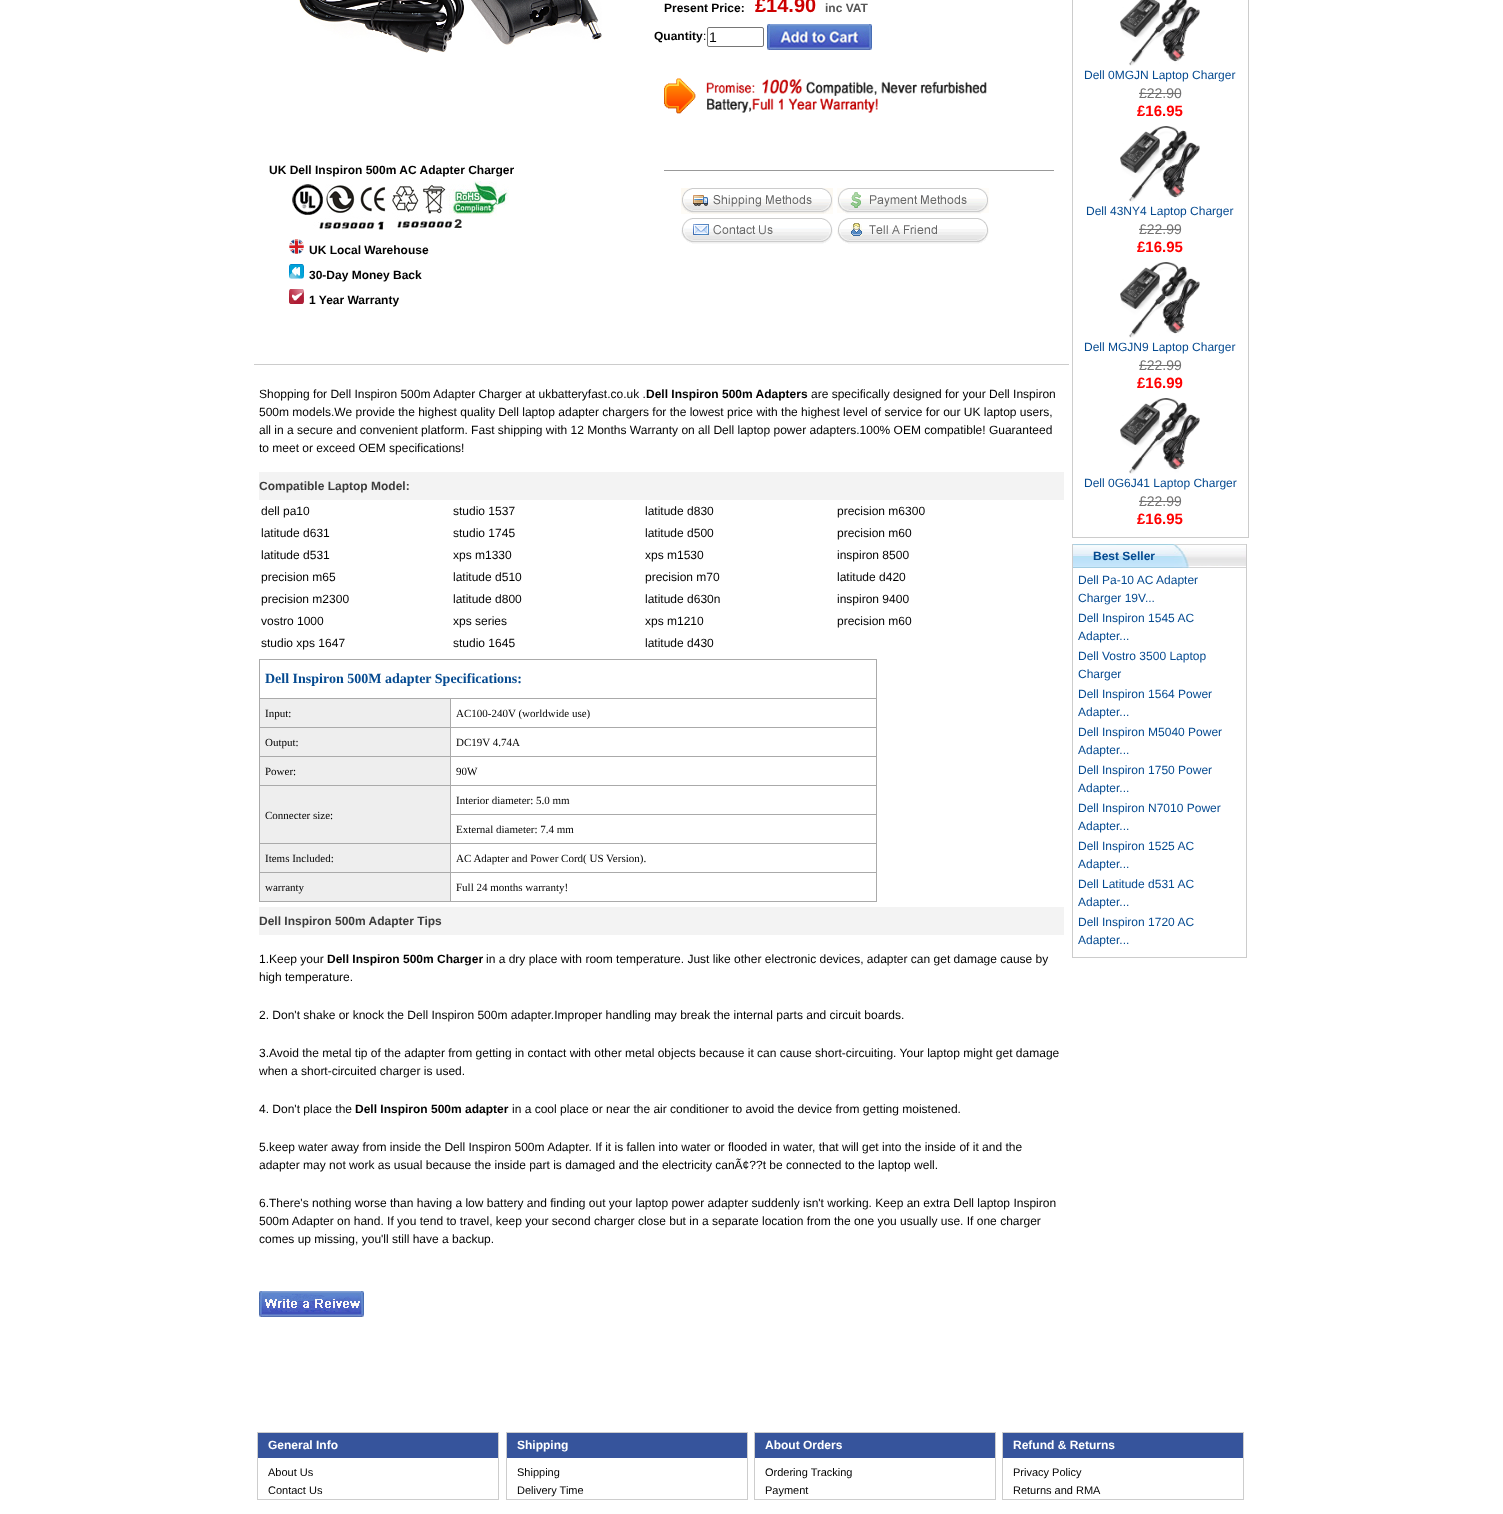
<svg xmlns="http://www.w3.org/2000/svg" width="1503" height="1514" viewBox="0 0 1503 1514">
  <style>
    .t1 { font: bold 12px Liberation Sans; fill: #000; }
    .t2 { font: bold 20px Liberation Sans; fill: #c00; }
    .t3 { font: bold 12px Liberation Sans; fill: #565656; }
    .t4 { font: 12px Liberation Sans; fill: #000; }
    .t5 { font: 14px Liberation Sans; fill: #000; }
    .t6 { font: bold 12px Liberation Sans; fill: #3c3c3c; }
    .t7 { font: bold 14px Liberation Serif; fill: #054a90; }
    .t8 { font: 11px Liberation Serif; fill: #000; }
    .t9 { font: 12px Liberation Sans; fill: #054a90; }
    .t10 { font: 14px Liberation Sans; fill: #727171; }
    .t11 { font: bold 15px Liberation Sans; fill: #f00; }
    .t12 { font: bold 12px Liberation Sans; fill: #054a90; }
    .t13 { font: bold 12px Liberation Sans; fill: #fff; }
    .t14 { font: 11px Liberation Sans; fill: #000; }
  </style>
  <rect width="100%" height="100%" fill="#fff"/>
  <text x="664" y="12" class="t1">Present Price:</text>
  <text x="755" y="12" class="t2">£14.90</text>
  <text x="825" y="12" class="t3">inc VAT</text>
  <text x="654" y="40" class="t1">Quantity</text>
  <text x="703" y="40" class="t4">:</text>
  <rect x="707.5" y="27.5" width="56" height="19" rx="1.5" fill="none" stroke="#767676"/>
  <text x="709" y="42" class="t5">1</text>
  <image x="767" y="24" width="105" height="26" href="images/1.png"/>
  <image x="664" y="78" width="323" height="36" href="images/2.png"/>
  <rect x="664" y="170" width="390" height="1" fill="#999"/>
  <image x="681" y="188" width="152" height="26" href="images/3.png"/>
  <image x="837" y="188" width="152" height="26" href="images/4.png"/>
  <image x="681" y="218" width="152" height="26" href="images/5.png"/>
  <image x="837" y="218" width="152" height="26" href="images/6.png"/>
  <image x="299" y="0" width="303" height="53" href="images/7.png"/>
  <text x="269" y="174" class="t1">UK Dell Inspiron 500m AC Adapter Charger</text>
  <image x="292" y="181" width="217" height="49" href="images/8.png"/>
  <image x="289" y="239" width="15" height="15" href="images/9.png"/>
  <text x="309" y="254" class="t1">UK Local Warehouse</text>
  <image x="289" y="264" width="15" height="15" href="images/10.png"/>
  <text x="309" y="279" class="t1">30-Day Money Back</text>
  <image x="289" y="289" width="15" height="15" href="images/11.png"/>
  <text x="309" y="304" class="t1">1 Year Warranty</text>
  <rect x="254" y="364" width="815" height="1" fill="#ccc"/>
  <text x="259" y="398" class="t4">Shopping for Dell Inspiron 500m Adapter Charger at ukbatteryfast.co.uk .</text>
  <text x="646" y="398" class="t1">Dell Inspiron 500m Adapters</text>
  <text x="811" y="398" class="t4">are specifically designed for your Dell Inspiron</text>
  <text x="259" y="416" class="t4">500m models.We provide the highest quality Dell laptop adapter chargers for the lowest price with the highest level of service for our UK laptop users,</text>
  <text x="259" y="434" class="t4">all in a secure and convenient platform. Fast shipping with 12 Months Warranty on all Dell laptop power adapters.100% OEM compatible! Guaranteed</text>
  <text x="259" y="452" class="t4">to meet or exceed OEM specifications!</text>
  <rect x="259" y="472" width="805" height="28" fill="#f3f3f3"/>
  <text x="259" y="490" class="t6">Compatible Laptop Model:</text>
  <text x="261" y="515" class="t4">dell pa10</text>
  <text x="453" y="515" class="t4">studio 1537</text>
  <text x="645" y="515" class="t4">latitude d830</text>
  <text x="837" y="515" class="t4">precision m6300</text>
  <text x="261" y="537" class="t4">latitude d631</text>
  <text x="453" y="537" class="t4">studio 1745</text>
  <text x="645" y="537" class="t4">latitude d500</text>
  <text x="837" y="537" class="t4">precision m60</text>
  <text x="261" y="559" class="t4">latitude d531</text>
  <text x="453" y="559" class="t4">xps m1330</text>
  <text x="645" y="559" class="t4">xps m1530</text>
  <text x="837" y="559" class="t4">inspiron 8500</text>
  <text x="261" y="581" class="t4">precision m65</text>
  <text x="453" y="581" class="t4">latitude d510</text>
  <text x="645" y="581" class="t4">precision m70</text>
  <text x="837" y="581" class="t4">latitude d420</text>
  <text x="261" y="603" class="t4">precision m2300</text>
  <text x="453" y="603" class="t4">latitude d800</text>
  <text x="645" y="603" class="t4">latitude d630n</text>
  <text x="837" y="603" class="t4">inspiron 9400</text>
  <text x="261" y="625" class="t4">vostro 1000</text>
  <text x="453" y="625" class="t4">xps series</text>
  <text x="645" y="625" class="t4">xps m1210</text>
  <text x="837" y="625" class="t4">precision m60</text>
  <text x="261" y="647" class="t4">studio xps 1647</text>
  <text x="453" y="647" class="t4">studio 1645</text>
  <text x="645" y="647" class="t4">latitude d430</text>
  <rect x="259" y="659" width="618" height="243" fill="#aaa"/>
  <rect x="260" y="660" width="616" height="38" fill="#fff"/>
  <text x="265" y="683" class="t7">Dell Inspiron 500M adapter Specifications:</text>
  <rect x="260" y="699" width="190" height="28" fill="#eee"/>
  <text x="265" y="717" class="t8">Input:</text>
  <rect x="451" y="699" width="425" height="28" fill="#fff"/>
  <text x="456" y="717" class="t8">AC100-240V (worldwide use)</text>
  <rect x="260" y="728" width="190" height="28" fill="#eee"/>
  <text x="265" y="746" class="t8">Output:</text>
  <rect x="451" y="728" width="425" height="28" fill="#fff"/>
  <text x="456" y="746" class="t8">DC19V 4.74A</text>
  <rect x="260" y="757" width="190" height="28" fill="#eee"/>
  <text x="265" y="775" class="t8">Power:</text>
  <rect x="451" y="757" width="425" height="28" fill="#fff"/>
  <text x="456" y="775" class="t8">90W</text>
  <rect x="451" y="786" width="425" height="28" fill="#fff"/>
  <text x="456" y="804" class="t8">Interior diameter: 5.0 mm</text>
  <rect x="260" y="786" width="190" height="57" fill="#eee"/>
  <text x="265" y="819" class="t8">Connecter size:</text>
  <rect x="451" y="815" width="425" height="28" fill="#fff"/>
  <text x="456" y="833" class="t8">External diameter: 7.4 mm</text>
  <rect x="260" y="844" width="190" height="28" fill="#eee"/>
  <text x="265" y="862" class="t8">Items Included:</text>
  <rect x="451" y="844" width="425" height="28" fill="#fff"/>
  <text x="456" y="862" class="t8">AC Adapter and Power Cord( US Version).</text>
  <rect x="260" y="873" width="190" height="28" fill="#eee"/>
  <text x="265" y="891" class="t8">warranty</text>
  <rect x="451" y="873" width="425" height="28" fill="#fff"/>
  <text x="456" y="891" class="t8">Full 24 months warranty!</text>
  <rect x="259" y="907" width="805" height="28" fill="#f3f3f3"/>
  <text x="259" y="925" class="t6">Dell Inspiron 500m Adapter Tips</text>
  <text x="259" y="963" class="t4">1.Keep your</text>
  <text x="327" y="963" class="t1">Dell Inspiron 500m Charger</text>
  <text x="486" y="963" class="t4">in a dry place with room temperature. Just like other electronic devices, adapter can get damage cause by</text>
  <text x="259" y="981" class="t4">high temperature.</text>
  <text x="259" y="1019" class="t4">2. Don't shake or knock the Dell Inspiron 500m adapter.Improper handling may break the internal parts and circuit boards.</text>
  <text x="259" y="1057" class="t4">3.Avoid the metal tip of the adapter from getting in contact with other metal objects because it can cause short-circuiting. Your laptop might get damage</text>
  <text x="259" y="1075" class="t4">when a short-circuited charger is used.</text>
  <text x="259" y="1113" class="t4">4. Don't place the</text>
  <text x="355" y="1113" class="t1">Dell Inspiron 500m adapter</text>
  <text x="512" y="1113" class="t4">in a cool place or near the air conditioner to avoid the device from getting moistened.</text>
  <text x="259" y="1151" class="t4">5.keep water away from inside the Dell Inspiron 500m Adapter. If it is fallen into water or flooded in water, that will get into the inside of it and the</text>
  <text x="259" y="1169" class="t4">adapter may not work as usual because the inside part is damaged and the electricity canÃ¢??t be connected to the laptop well.</text>
  <text x="259" y="1207" class="t4">6.There's nothing worse than having a low battery and finding out your laptop power adapter suddenly isn't working. Keep an extra Dell laptop Inspiron</text>
  <text x="259" y="1225" class="t4">500m Adapter on hand. If you tend to travel, keep your second charger close but in a separate location from the one you usually use. If one charger</text>
  <text x="259" y="1243" class="t4">comes up missing, you'll still have a backup.</text>
  <image x="259" y="1291" width="105" height="26" href="images/12.png"/>
  <rect x="1248" y="0" width="1" height="538" fill="#ccc"/>
  <rect x="1072" y="537" width="177" height="1" fill="#ccc"/>
  <rect x="1072" y="0" width="1" height="538" fill="#ccc"/>
  <image x="1120" y="0" width="80" height="66" href="images/13.png"/>
  <text x="1084" y="79" class="t9">Dell 0MGJN Laptop Charger</text>
  <text x="1139" y="98" class="t10">£22.90</text>
  <rect x="1139" y="93" width="42" height="1" fill="#727171"/>
  <text x="1137" y="116" class="t11">£16.95</text>
  <image x="1120" y="126" width="80" height="76" href="images/14.png"/>
  <text x="1086" y="215" class="t9">Dell 43NY4 Laptop Charger</text>
  <text x="1139" y="234" class="t10">£22.99</text>
  <rect x="1139" y="229" width="42" height="1" fill="#727171"/>
  <text x="1137" y="252" class="t11">£16.95</text>
  <image x="1120" y="262" width="80" height="76" href="images/15.png"/>
  <text x="1084" y="351" class="t9">Dell MGJN9 Laptop Charger</text>
  <text x="1139" y="370" class="t10">£22.99</text>
  <rect x="1139" y="365" width="42" height="1" fill="#727171"/>
  <text x="1137" y="388" class="t11">£16.99</text>
  <image x="1120" y="398" width="80" height="76" href="images/14.png"/>
  <text x="1084" y="487" class="t9">Dell 0G6J41 Laptop Charger</text>
  <text x="1139" y="506" class="t10">£22.99</text>
  <rect x="1139" y="501" width="42" height="1" fill="#727171"/>
  <text x="1137" y="524" class="t11">£16.95</text>
  <rect x="1246" y="544" width="1" height="414" fill="#ccc"/>
  <rect x="1072" y="957" width="175" height="1" fill="#ccc"/>
  <rect x="1072" y="544" width="1" height="414" fill="#ccc"/>
  <image x="1073" y="544" width="173" height="24" href="images/16.png"/>
  <text x="1093" y="560" class="t12">Best Seller</text>
  <text x="1078" y="584" class="t9">Dell Pa-10 AC Adapter</text>
  <text x="1078" y="602" class="t9">Charger 19V...</text>
  <text x="1078" y="622" class="t9">Dell Inspiron 1545 AC</text>
  <text x="1078" y="640" class="t9">Adapter...</text>
  <text x="1078" y="660" class="t9">Dell Vostro 3500 Laptop</text>
  <text x="1078" y="678" class="t9">Charger</text>
  <text x="1078" y="698" class="t9">Dell Inspiron 1564 Power</text>
  <text x="1078" y="716" class="t9">Adapter...</text>
  <text x="1078" y="736" class="t9">Dell Inspiron M5040 Power</text>
  <text x="1078" y="754" class="t9">Adapter...</text>
  <text x="1078" y="774" class="t9">Dell Inspiron 1750 Power</text>
  <text x="1078" y="792" class="t9">Adapter...</text>
  <text x="1078" y="812" class="t9">Dell Inspiron N7010 Power</text>
  <text x="1078" y="830" class="t9">Adapter...</text>
  <text x="1078" y="850" class="t9">Dell Inspiron 1525 AC</text>
  <text x="1078" y="868" class="t9">Adapter...</text>
  <text x="1078" y="888" class="t9">Dell Latitude d531 AC</text>
  <text x="1078" y="906" class="t9">Adapter...</text>
  <text x="1078" y="926" class="t9">Dell Inspiron 1720 AC</text>
  <text x="1078" y="944" class="t9">Adapter...</text>
  <rect x="257.5" y="1432.5" width="241" height="67" fill="none" stroke="#cdcdcd"/>
  <rect x="258" y="1433" width="240" height="25" fill="#36549c"/>
  <text x="268" y="1449" class="t13">General Info</text>
  <text x="268" y="1476" class="t14">About Us</text>
  <text x="268" y="1494" class="t14">Contact Us</text>
  <rect x="506.5" y="1432.5" width="241" height="67" fill="none" stroke="#cdcdcd"/>
  <rect x="507" y="1433" width="240" height="25" fill="#36549c"/>
  <text x="517" y="1449" class="t13">Shipping</text>
  <text x="517" y="1476" class="t14">Shipping</text>
  <text x="517" y="1494" class="t14">Delivery Time</text>
  <rect x="754.5" y="1432.5" width="241" height="67" fill="none" stroke="#cdcdcd"/>
  <rect x="755" y="1433" width="240" height="25" fill="#36549c"/>
  <text x="765" y="1449" class="t13">About Orders</text>
  <text x="765" y="1476" class="t14">Ordering Tracking</text>
  <text x="765" y="1494" class="t14">Payment</text>
  <rect x="1002.5" y="1432.5" width="241" height="67" fill="none" stroke="#cdcdcd"/>
  <rect x="1003" y="1433" width="240" height="25" fill="#36549c"/>
  <text x="1013" y="1449" class="t13">Refund &amp; Returns</text>
  <text x="1013" y="1476" class="t14">Privacy Policy</text>
  <text x="1013" y="1494" class="t14">Returns and RMA</text>
</svg>
